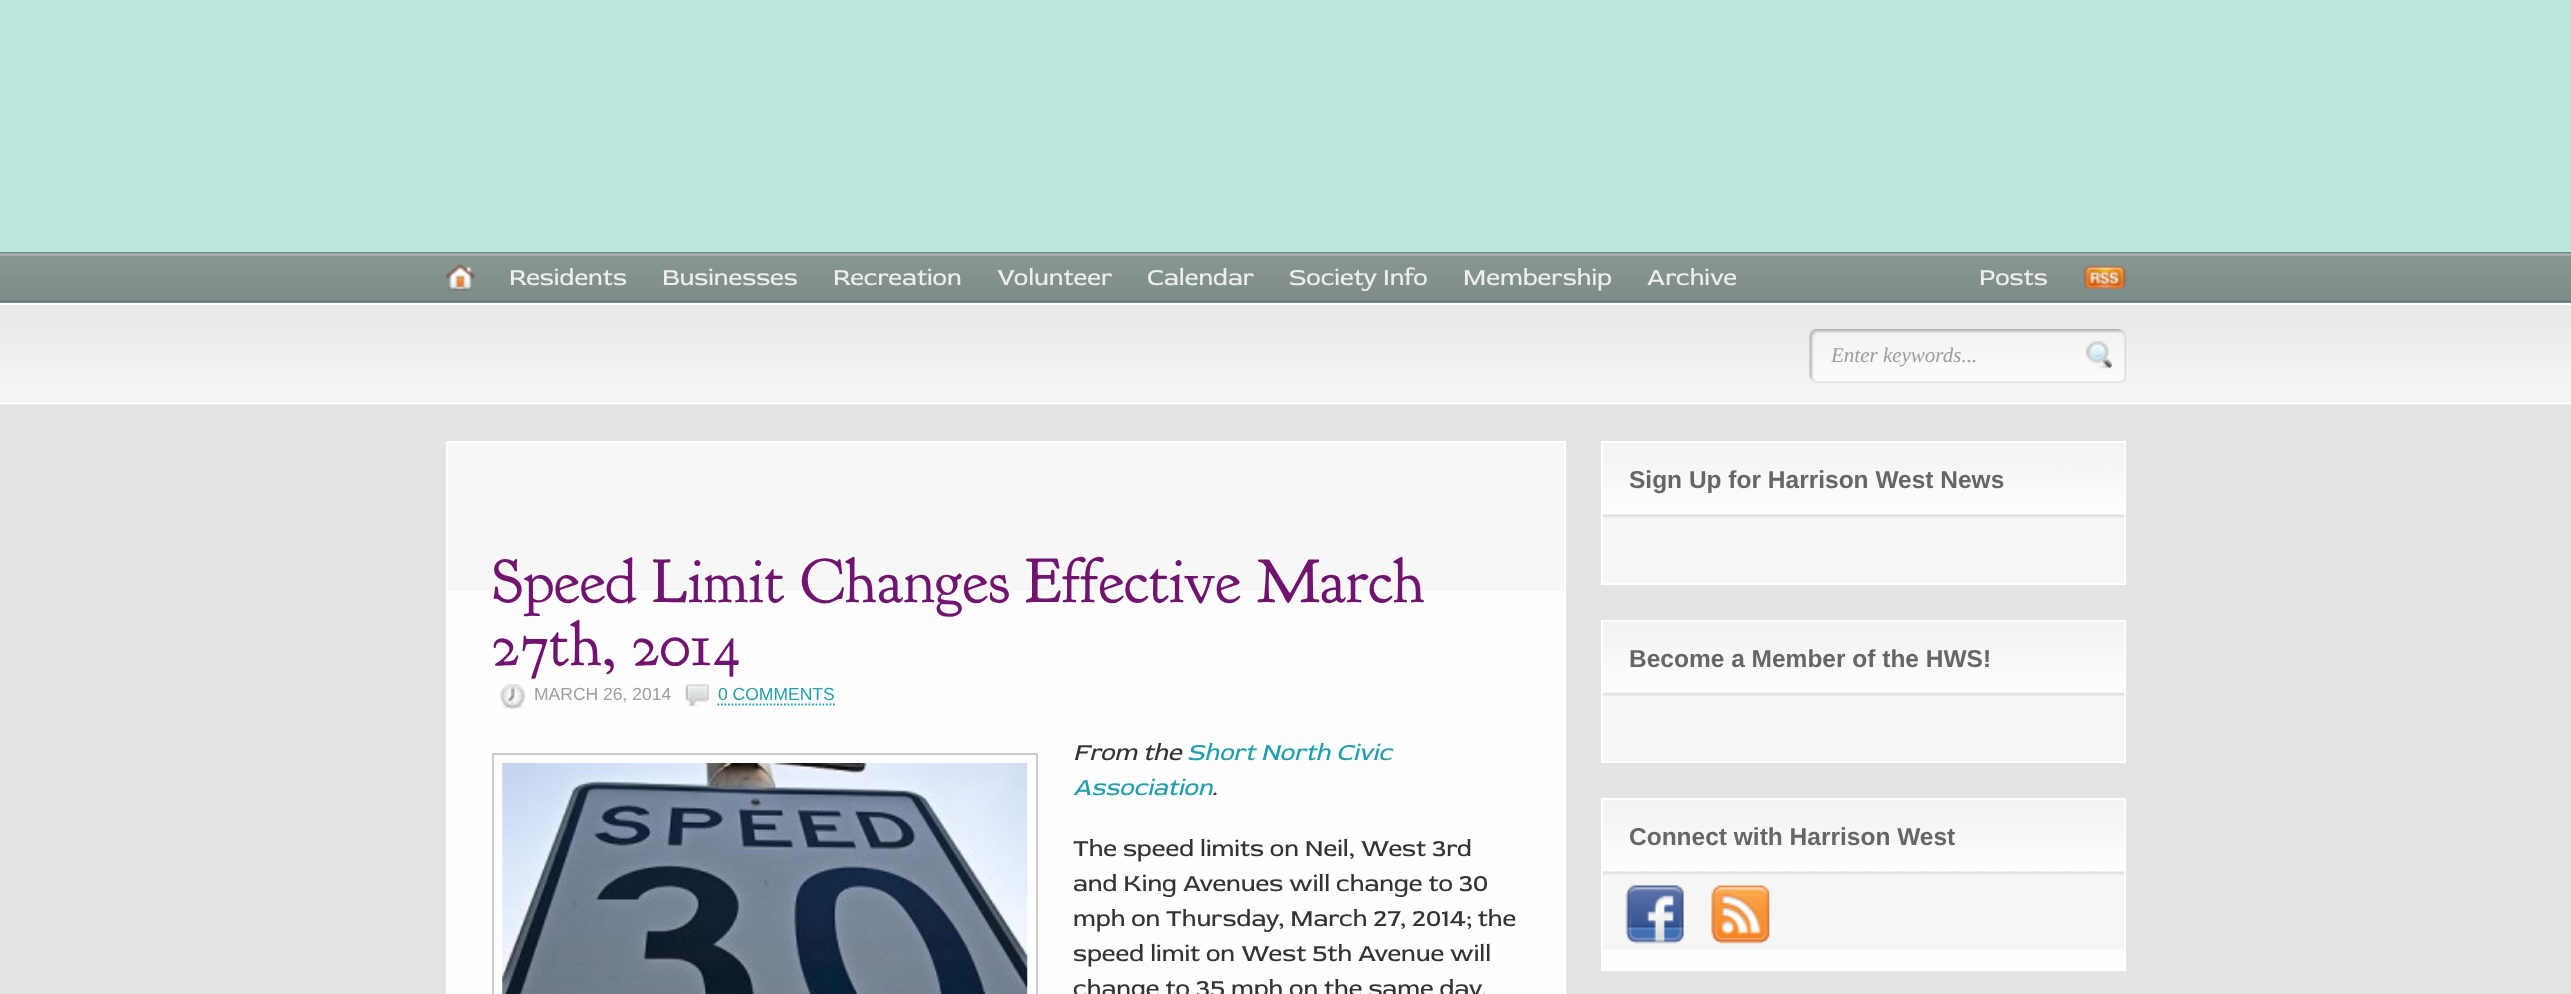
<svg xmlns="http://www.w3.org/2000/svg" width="2571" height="994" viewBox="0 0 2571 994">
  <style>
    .t1 { font: 24.5px Red Rose; fill: #eee; }
    .t2 { font: italic 21px Liberation Serif; fill: #9d9d9d; }
    .t3 { font: 63px 'Goudy Bookletter 1911'; fill: #701470; }
    .t4 { font: 17.5px Liberation Sans; fill: #9d9d9d; }
    .t5 { font: 17.5px Liberation Sans; fill: #229fad; }
    .t6 { font: italic 24.5px Red Rose; fill: #333; }
    .t7 { font: italic 24.5px Red Rose; fill: #229fad; }
    .t8 { font: 24.5px Red Rose; fill: #333; }
    .t9 { font: bold 24.5px Liberation Sans; fill: #666; }
  </style>
  <rect width="100%" height="100%" fill="#e4e4e4"/>
  <rect x="0" y="0" width="2571" height="303" fill="#bce8e0"/>
  <image x="0" y="252" width="2571" height="51" href="images/1.png"/>
  <image x="446" y="264" width="29" height="27" href="images/2.png"/>
  <text x="509" y="285" class="t1">Residents</text>
  <text x="662" y="285" class="t1">Businesses</text>
  <text x="833" y="285" class="t1">Recreation</text>
  <text x="997" y="285" class="t1">Volunteer</text>
  <text x="1147" y="285" class="t1">Calendar</text>
  <text x="1289" y="285" class="t1">Society Info</text>
  <text x="1463" y="285" class="t1">Membership</text>
  <text x="1647" y="285" class="t1">Archive</text>
  <image x="2084" y="266" width="43" height="23" href="images/3.png"/>
  <text x="1979" y="285" class="t1">Posts</text>
  <image x="0" y="305" width="2571" height="101" href="images/4.png"/>
  <rect x="0" y="303" width="2571" height="2" fill="#fff"/>
  <image x="1809" y="329" width="317" height="54" href="images/5.png"/>
  <text x="1831" y="362" class="t2">Enter keywords...</text>
  <image x="2086" y="341" width="26" height="28" href="images/6.png"/>
  <rect x="448" y="591" width="1116" height="403" fill="#fefefe"/>
  <rect x="448" y="443" width="1116" height="148" fill="#f7f7f7"/>
  <rect x="447" y="442" width="1118" height="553" fill="none" stroke="#fff" stroke-width="2"/>
  <text x="492" y="602" class="t3">Speed Limit Changes Effective March</text>
  <text x="492" y="665" class="t3">27th, 2014</text>
  <image x="500" y="684" width="25" height="25" href="images/7.png"/>
  <text x="534" y="700" class="t4">MARCH 26, 2014</text>
  <image x="685" y="684" width="24" height="23" href="images/8.png"/>
  <text x="718" y="700" class="t5">0 COMMENTS</text>
  <path d="M717.5 704.5H835" fill="none" stroke="#229fad" stroke-width="1.8" stroke-dasharray="1.75 1.75"/>
  <rect x="493" y="754" width="544" height="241" fill="none" stroke="#ccc" stroke-width="2"/>
  <image x="502" y="763" width="526" height="231" href="images/9.png"/>
  <text x="1073" y="760" class="t6">From the</text>
  <text x="1187" y="760" class="t7">Short North Civic</text>
  <text x="1073" y="795" class="t7">Association</text>
  <text x="1212" y="795" class="t6">.</text>
  <text x="1073" y="856" class="t8">The speed limits on Neil, West 3rd</text>
  <text x="1073" y="891" class="t8">and King Avenues will change to 30</text>
  <text x="1073" y="926" class="t8">mph on Thursday, March 27, 2014; the</text>
  <text x="1073" y="961" class="t8">speed limit on West 5th Avenue will</text>
  <text x="1073" y="996" class="t8">change to 35 mph on the same day.</text>
  <rect x="1602" y="442" width="523" height="142" fill="#f6f6f6" stroke="#fff" stroke-width="2"/>
  <image x="1603" y="443" width="522" height="75" href="images/10.png"/>
  <text x="1629" y="488" class="t9">Sign Up for Harrison West News</text>
  <rect x="1602" y="621" width="523" height="141" fill="#f6f6f6" stroke="#fff" stroke-width="2"/>
  <image x="1603" y="621" width="522" height="75" href="images/11.png"/>
  <text x="1629" y="667" class="t9">Become a Member of the HWS!</text>
  <rect x="1603" y="950" width="521" height="19" fill="#fefefe"/>
  <rect x="1603" y="800" width="521" height="150" fill="#f6f6f6"/>
  <rect x="1602" y="799" width="523" height="171" fill="none" stroke="#fff" stroke-width="2"/>
  <image x="1603" y="800" width="522" height="75" href="images/12.png"/>
  <text x="1629" y="845" class="t9">Connect with Harrison West</text>
  <image x="1625" y="885" width="59" height="59" href="images/13.png"/>
  <image x="1711" y="885" width="59" height="59" href="images/14.png"/>
</svg>
